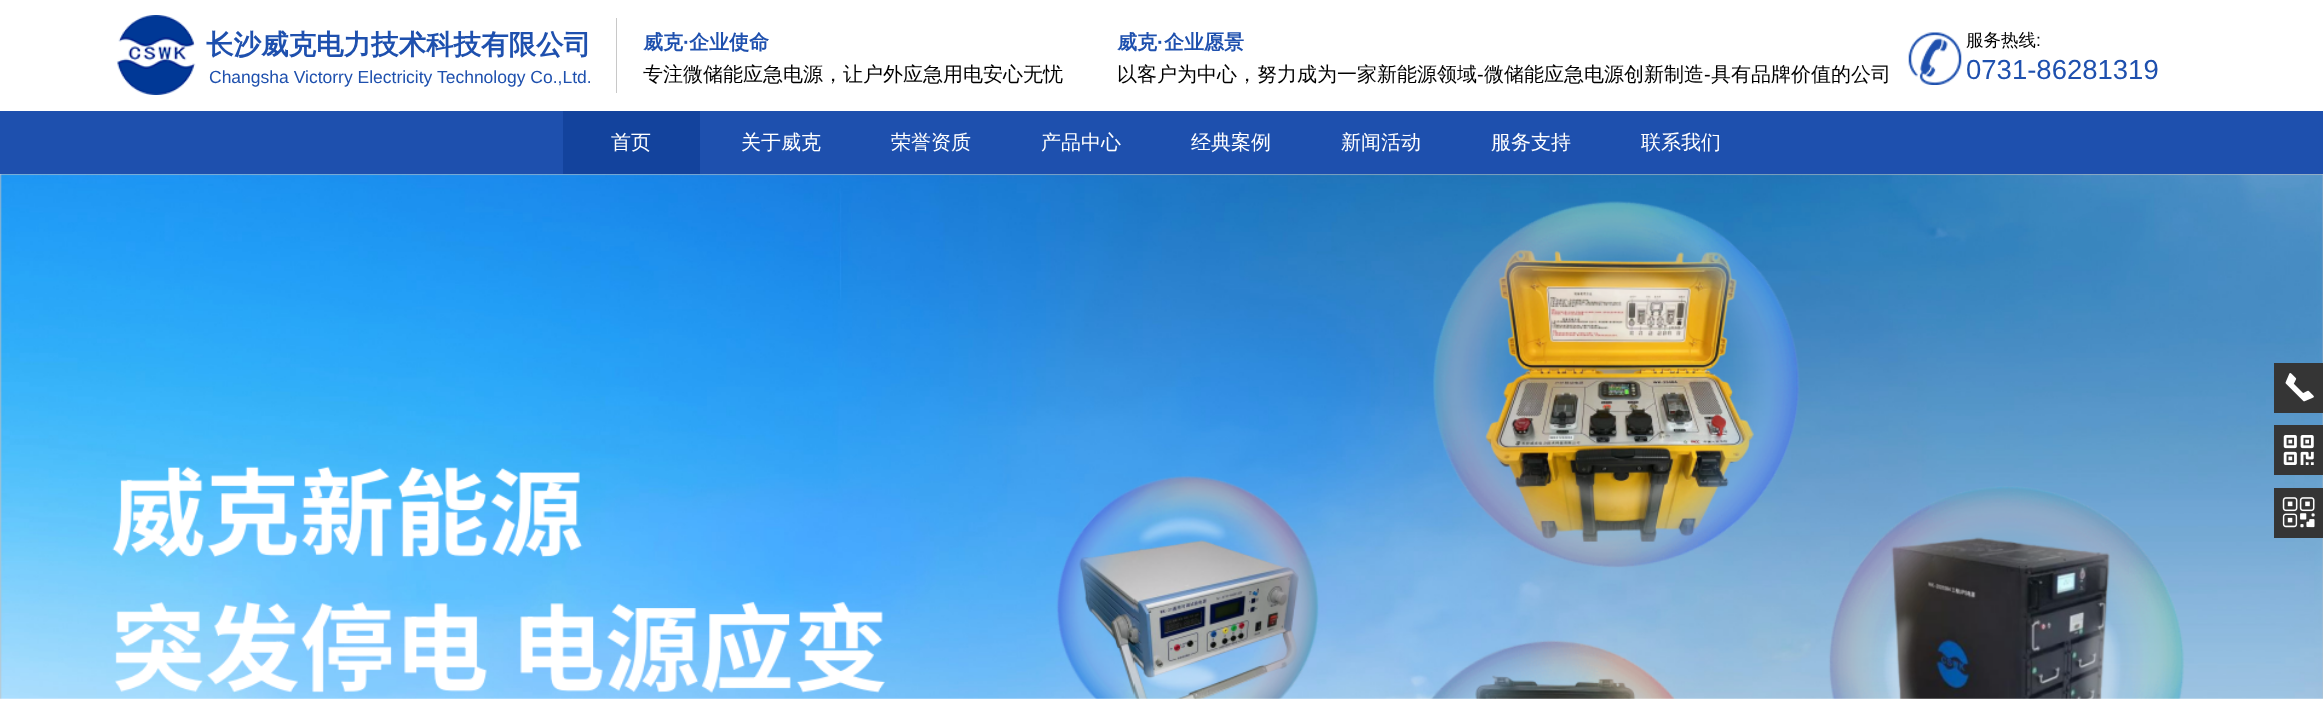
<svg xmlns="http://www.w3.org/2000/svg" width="2323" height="724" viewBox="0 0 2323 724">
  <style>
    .t1 { font: bold 27.5px WenQuanYi Zen Hei; fill: #1e50ae; }
    .t2 { font: 17.5px Liberation Sans; fill: #1e50ae; }
    .t3 { font: bold 20px WenQuanYi Zen Hei; fill: #1e50ae; }
    .t4 { font: bold 20px Liberation Sans; fill: #1e50ae; }
    .t5 { font: 500 20px WenQuanYi Zen Hei; fill: #000; }
    .t6 { font: 20px Liberation Sans; fill: #000; }
    .t7 { font: 500 17.5px WenQuanYi Zen Hei; fill: #000; }
    .t8 { font: 17.5px Liberation Sans; fill: #000; }
    .t9 { font: 27.5px Liberation Sans; fill: #1e50ae; }
    .t10 { font: 500 20px WenQuanYi Zen Hei; fill: #fff; }
  </style>
  <rect width="100%" height="100%" fill="#fff"/>
  <image x="116" y="15" width="80" height="80" href="images/1.png"/>
  <text x="206" y="54" class="t1">长沙威克电力技术科技有限公司</text>
  <text x="209" y="83" class="t2">Changsha Victorry Electricity Technology Co.,Ltd.</text>
  <rect x="616" y="18" width="1" height="75" fill="#c8c8c8"/>
  <text x="643" y="49" class="t3">威克</text>
  <text x="683" y="49" class="t4">·</text>
  <text x="689" y="49" class="t3">企业使命</text>
  <text x="643" y="81" class="t5">专注微储能应急电源，让户外应急用电安心无忧</text>
  <text x="1117" y="49" class="t3">威克</text>
  <text x="1157" y="49" class="t4">·</text>
  <text x="1164" y="49" class="t3">企业愿景</text>
  <text x="1117" y="81" class="t5">以客户为中心，努力成为一家新能源领域</text>
  <text x="1477" y="81" class="t6">-</text>
  <text x="1484" y="81" class="t5">微储能应急电源创新制造</text>
  <text x="1704" y="81" class="t6">-</text>
  <text x="1711" y="81" class="t5">具有品牌价值的公司</text>
  <image x="1908" y="32" width="54" height="53" href="images/2.png"/>
  <text x="1966" y="46" class="t7">服务热线</text>
  <text x="2036" y="46" class="t8">:</text>
  <text x="1966" y="79" class="t9">0731-86281319</text>
  <rect x="0" y="111" width="2323" height="63" fill="#1e50ae"/>
  <rect x="563" y="111" width="137" height="63" fill="#13439d"/>
  <text x="611" y="149" class="t10">首页</text>
  <text x="741" y="149" class="t10">关于威克</text>
  <text x="891" y="149" class="t10">荣誉资质</text>
  <text x="1041" y="149" class="t10">产品中心</text>
  <text x="1191" y="149" class="t10">经典案例</text>
  <text x="1341" y="149" class="t10">新闻活动</text>
  <text x="1491" y="149" class="t10">服务支持</text>
  <text x="1641" y="149" class="t10">联系我们</text>
  <image x="0" y="174" width="2323" height="525" href="images/6.png"/>
  <rect x="2274" y="363" width="49" height="50" fill="#353535"/>
  <image x="2285" y="373" width="29" height="29" href="images/3.png"/>
  <rect x="2274" y="425" width="49" height="50" fill="#353535"/>
  <image x="2283" y="435" width="31" height="30" href="images/4.png"/>
  <rect x="2274" y="488" width="49" height="50" fill="#353535"/>
  <image x="2282" y="497" width="33" height="31" href="images/5.png"/>
</svg>
